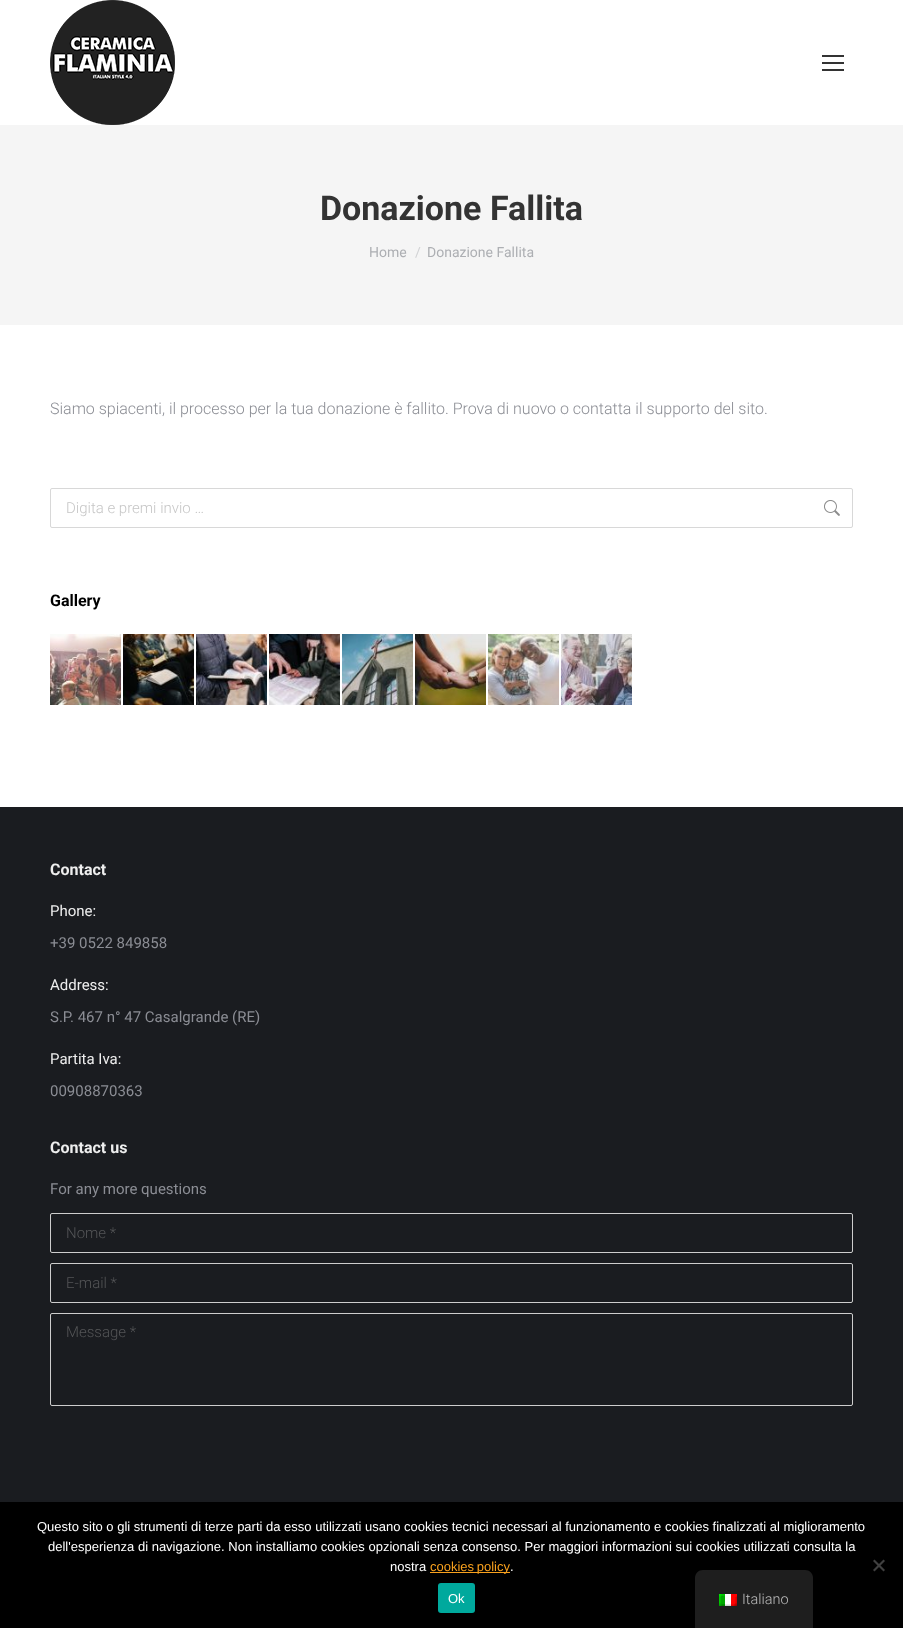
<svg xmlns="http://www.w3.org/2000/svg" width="903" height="1628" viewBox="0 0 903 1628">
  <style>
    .t1 { font: bold 34px Roboto; fill: #333; }
    .t2 { font: 14px Roboto; fill: #adafb3; }
    .t3 { font: 14px Roboto; fill: #d1d2d4; }
    .t4 { font: 300 16px Roboto; fill: #8b8d94; }
    .t5 { font: 300 15px Roboto; fill: #c6c6c6; }
    .t6 { font: bold 16px Roboto; fill: #000; }
    .t7 { font: bold 16px Roboto; fill: #eee; }
    .t8 { font: 15px Roboto; fill: #eee; }
    .t9 { font: 15px Roboto; fill: #8b8d94; }
    .t10 { font: 300 15px Roboto; fill: #545557; }
    .t11 { font: 13px Liberation Sans; fill: #fff; }
    .t12 { font: 13px Liberation Sans; fill: #f9a11d; }
    .t13 { font: 300 14.5px Roboto; fill: #bdbdbd; }
  </style>
  <rect width="100%" height="100%" fill="#fff"/>
  <image x="50" y="0" width="125" height="125" href="images/1.png"/>
  <rect x="822" y="55" width="22" height="2" fill="#333"/>
  <rect x="822" y="62" width="22" height="2" fill="#333"/>
  <rect x="822" y="69" width="22" height="2" fill="#333"/>
  <rect x="0" y="125" width="903" height="200" fill="#f5f5f5"/>
  <text x="320" y="220" class="t1">Donazione Fallita</text>
  <text x="369" y="257" class="t2">Home</text>
  <text x="415" y="257" class="t3">/</text>
  <text x="427" y="257" class="t2">Donazione Fallita</text>
  <text x="50" y="414" class="t4">Siamo spiacenti, il processo per la tua donazione è fallito. Prova di nuovo o contatta il supporto del sito.</text>
  <rect x="50.5" y="488.5" width="802" height="39" rx="1.5" fill="none" stroke="#d8d8d8"/>
  <text x="66" y="513" class="t5">Digita e premi invio …</text>
  <image x="824" y="500" width="16" height="16" href="images/2.png"/>
  <text x="50" y="606" class="t6">Gallery</text>
  <image x="50" y="634" width="71" height="71" href="images/3.png"/>
  <image x="123" y="634" width="71" height="71" href="images/4.png"/>
  <image x="196" y="634" width="71" height="71" href="images/5.png"/>
  <image x="269" y="634" width="71" height="71" href="images/6.png"/>
  <image x="342" y="634" width="71" height="71" href="images/7.png"/>
  <image x="415" y="634" width="71" height="71" href="images/8.png"/>
  <image x="488" y="634" width="71" height="71" href="images/9.png"/>
  <image x="561" y="634" width="71" height="71" href="images/10.png"/>
  <rect x="0" y="807" width="903" height="695" fill="#1a1c20"/>
  <text x="50" y="875" class="t7">Contact</text>
  <text x="50" y="916" class="t8">Phone:</text>
  <text x="50" y="948" class="t9">+39 0522 849858</text>
  <text x="50" y="990" class="t8">Address:</text>
  <text x="50" y="1022" class="t9">S.P. 467 n° 47 Casalgrande (RE)</text>
  <text x="50" y="1064" class="t8">Partita Iva:</text>
  <text x="50" y="1096" class="t9">00908870363</text>
  <text x="50" y="1153" class="t7">Contact us</text>
  <text x="50" y="1194" class="t9">For any more questions</text>
  <rect x="50.5" y="1213.5" width="802" height="39" rx="1.5" fill="none" stroke="#cdcdcd"/>
  <text x="66" y="1238" class="t10">Nome *</text>
  <rect x="50.5" y="1263.5" width="802" height="39" rx="1.5" fill="none" stroke="#cdcdcd"/>
  <text x="66" y="1288" class="t10">E-mail *</text>
  <rect x="50.5" y="1313.5" width="802" height="92" rx="1.5" fill="none" stroke="#cdcdcd"/>
  <text x="66" y="1337" class="t10">Message *</text>
  <rect x="0" y="1502" width="903" height="126" fill="#000"/>
  <text x="37" y="1531" class="t11">Questo sito o gli strumenti di terze parti da esso utilizzati usano cookies tecnici necessari al funzionamento e cookies finalizzati al miglioramento</text>
  <text x="48" y="1551" class="t11">dell'esperienza di navigazione. Non installiamo cookies opzionali senza consenso. Per maggiori informazioni sui cookies utilizzati consulta la</text>
  <text x="390" y="1571" class="t11">nostra</text>
  <rect x="430" y="1572" width="80" height="1" fill="#f9a11d"/>
  <text x="430" y="1571" word-spacing="-1" class="t12">cookies policy</text>
  <text x="510" y="1571" class="t11">.</text>
  <path d="M883.5 1559.5L885 1561L874.5 1571.5L873 1570Z" fill="#404040"/>
  <path d="M873 1561L874.5 1559.5L885 1570L883.5 1571.5Z" fill="#404040"/>
  <rect x="438" y="1583" width="37" height="30" rx="3" fill="#00a99d"/>
  <text x="448" y="1603" class="t11">Ok</text>
  <path d="M703 1570H805C809.5 1570 813 1573.5 813 1578V1628H695V1578C695 1573.5 698.5 1570 703 1570Z" fill="#1e1e1e"/>
  <image x="719" y="1594" width="18" height="12" href="images/11.png"/>
  <text x="742" y="1604" class="t13">Italiano</text>
</svg>
